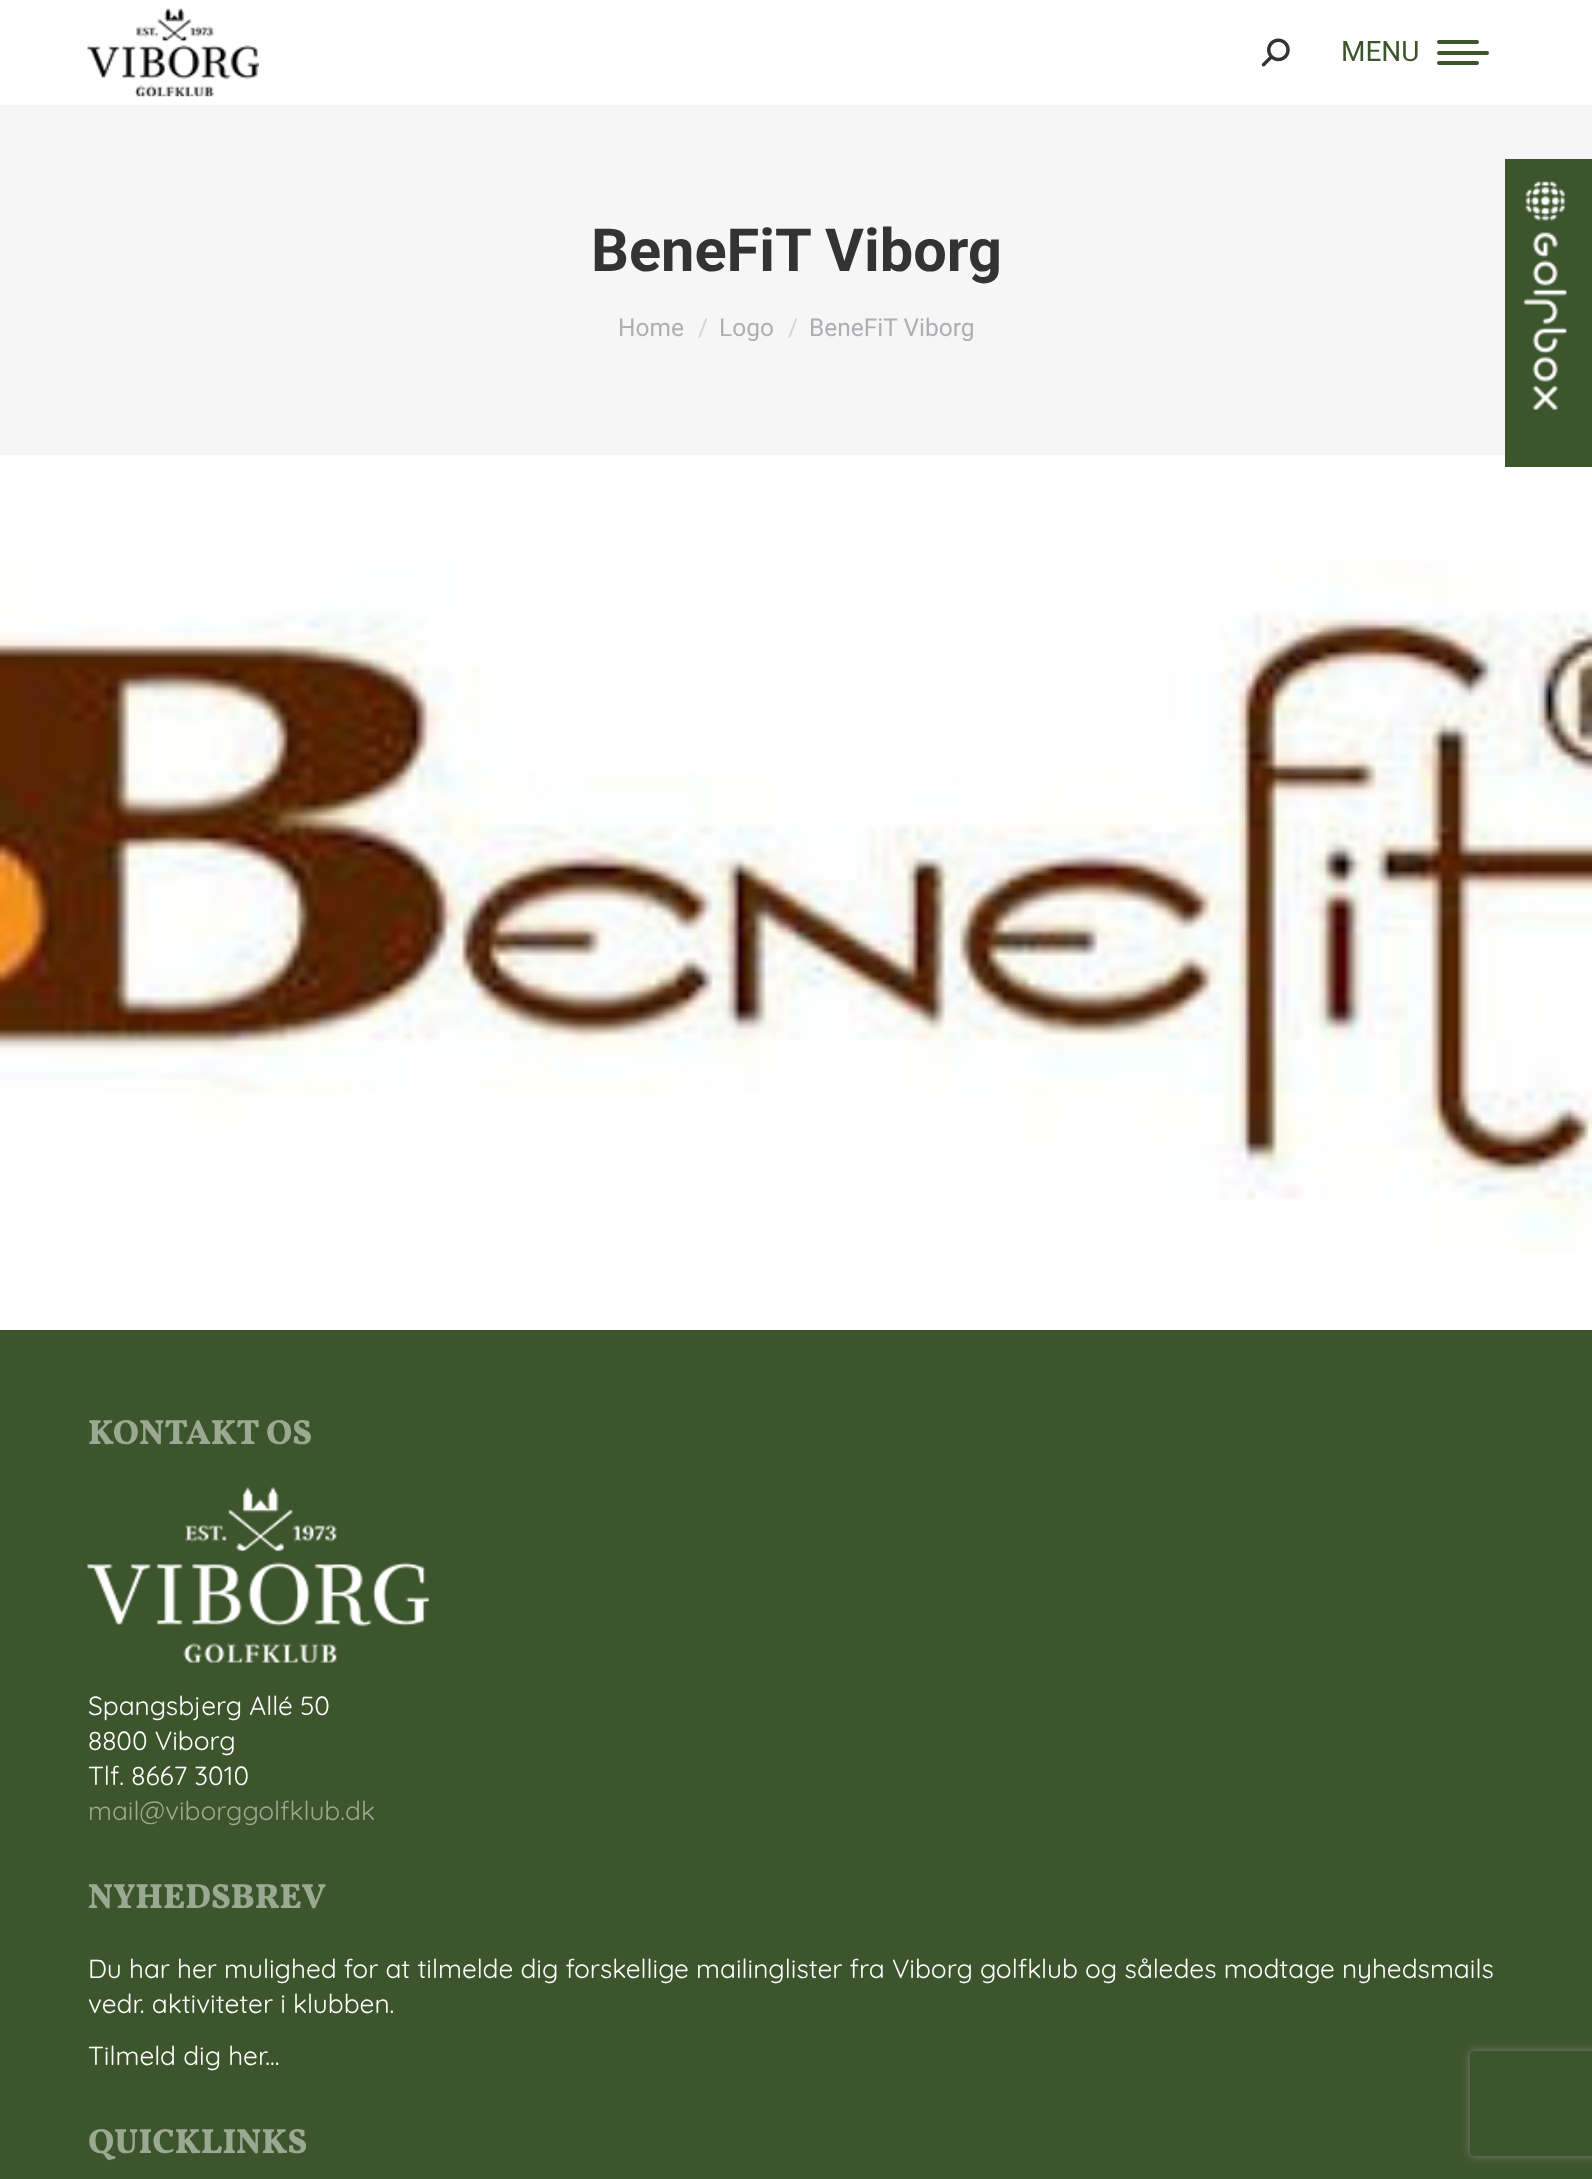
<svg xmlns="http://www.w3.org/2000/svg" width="1592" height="2179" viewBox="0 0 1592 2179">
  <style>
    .t1 { font: 28px Roboto; fill: #3d552c; }
    .t2 { font: bold 59.5px Roboto; fill: #333; }
    .t3 { font: 24.5px Roboto; fill: #adafb3; }
    .t4 { font: 24.5px Roboto; fill: #d2d3d5; }
    .t5 { font: 800 35px Vollkorn; fill: #9ba892; }
    .t6 { font: 26.25px Quicksand; fill: #fff; }
    .t7 { font: 26.25px Quicksand; fill: #9ba892; }
  </style>
  <defs>
    <clipPath id="clip1"><path d="M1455 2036H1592V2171H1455ZM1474 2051H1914C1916 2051 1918 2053 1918 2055V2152C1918 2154 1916 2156 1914 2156H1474C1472 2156 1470 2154 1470 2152V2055C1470 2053 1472 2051 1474 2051Z" clip-rule="evenodd"/></clipPath>
  </defs>
  <rect width="100%" height="100%" fill="#fff"/>
  <image x="87" y="8" width="172" height="89" href="images/1.png"/>
  <image x="1261" y="38" width="29" height="29" href="images/2.png"/>
  <text x="1341" y="61" class="t1">MENU</text>
  <rect x="1437" y="40" width="42" height="4" rx="2" fill="#3d552c"/>
  <rect x="1437" y="51" width="52" height="4" rx="2" fill="#3d552c"/>
  <rect x="1437" y="61" width="42" height="4" rx="2" fill="#3d552c"/>
  <rect x="0" y="105" width="1592" height="350" fill="#f6f6f6"/>
  <text x="591" y="271" class="t2">BeneFiT Viborg</text>
  <text x="618" y="336" class="t3">Home</text>
  <text x="698" y="336" class="t4">/</text>
  <text x="719" y="336" class="t3">Logo</text>
  <text x="788" y="336" class="t4">/</text>
  <text x="809" y="336" class="t3">BeneFiT Viborg</text>
  <image x="0" y="560" width="1592" height="691" href="images/3.png"/>
  <rect x="0" y="1330" width="1592" height="849" fill="#3d552c"/>
  <text x="88" y="1444" class="t5">KONTAKT OS</text>
  <image x="87" y="1487" width="342" height="176" href="images/4.png"/>
  <text x="88" y="1715" class="t6">Spangsbjerg Allé 50</text>
  <text x="88" y="1750" class="t6">8800 Viborg</text>
  <text x="88" y="1785" class="t6">Tlf. 8667 3010</text>
  <text x="88" y="1820" class="t7">mail@viborggolfklub.dk</text>
  <text x="88" y="1908" class="t5">NYHEDSBREV</text>
  <text x="88" y="1978" class="t6">Du har her mulighed for at tilmelde dig forskellige mailinglister fra Viborg golfklub og således modtage nyhedsmails</text>
  <text x="88" y="2013" class="t6">vedr. aktiviteter i klubben.</text>
  <text x="88" y="2065" class="t6">Tilmeld dig her...</text>
  <text x="88" y="2153" class="t5">QUICKLINKS</text>
  <rect x="1505" y="159" width="87" height="308" fill="#3d552c"/>
  <image x="1523" y="181" width="44" height="229" href="images/5.png"/>
  <g clip-path="url(#clip1)">
    <rect x="1470" y="2051" width="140" height="105" rx="4" fill="#808080" filter="blur(4.5px)"/>
  </g>
</svg>
